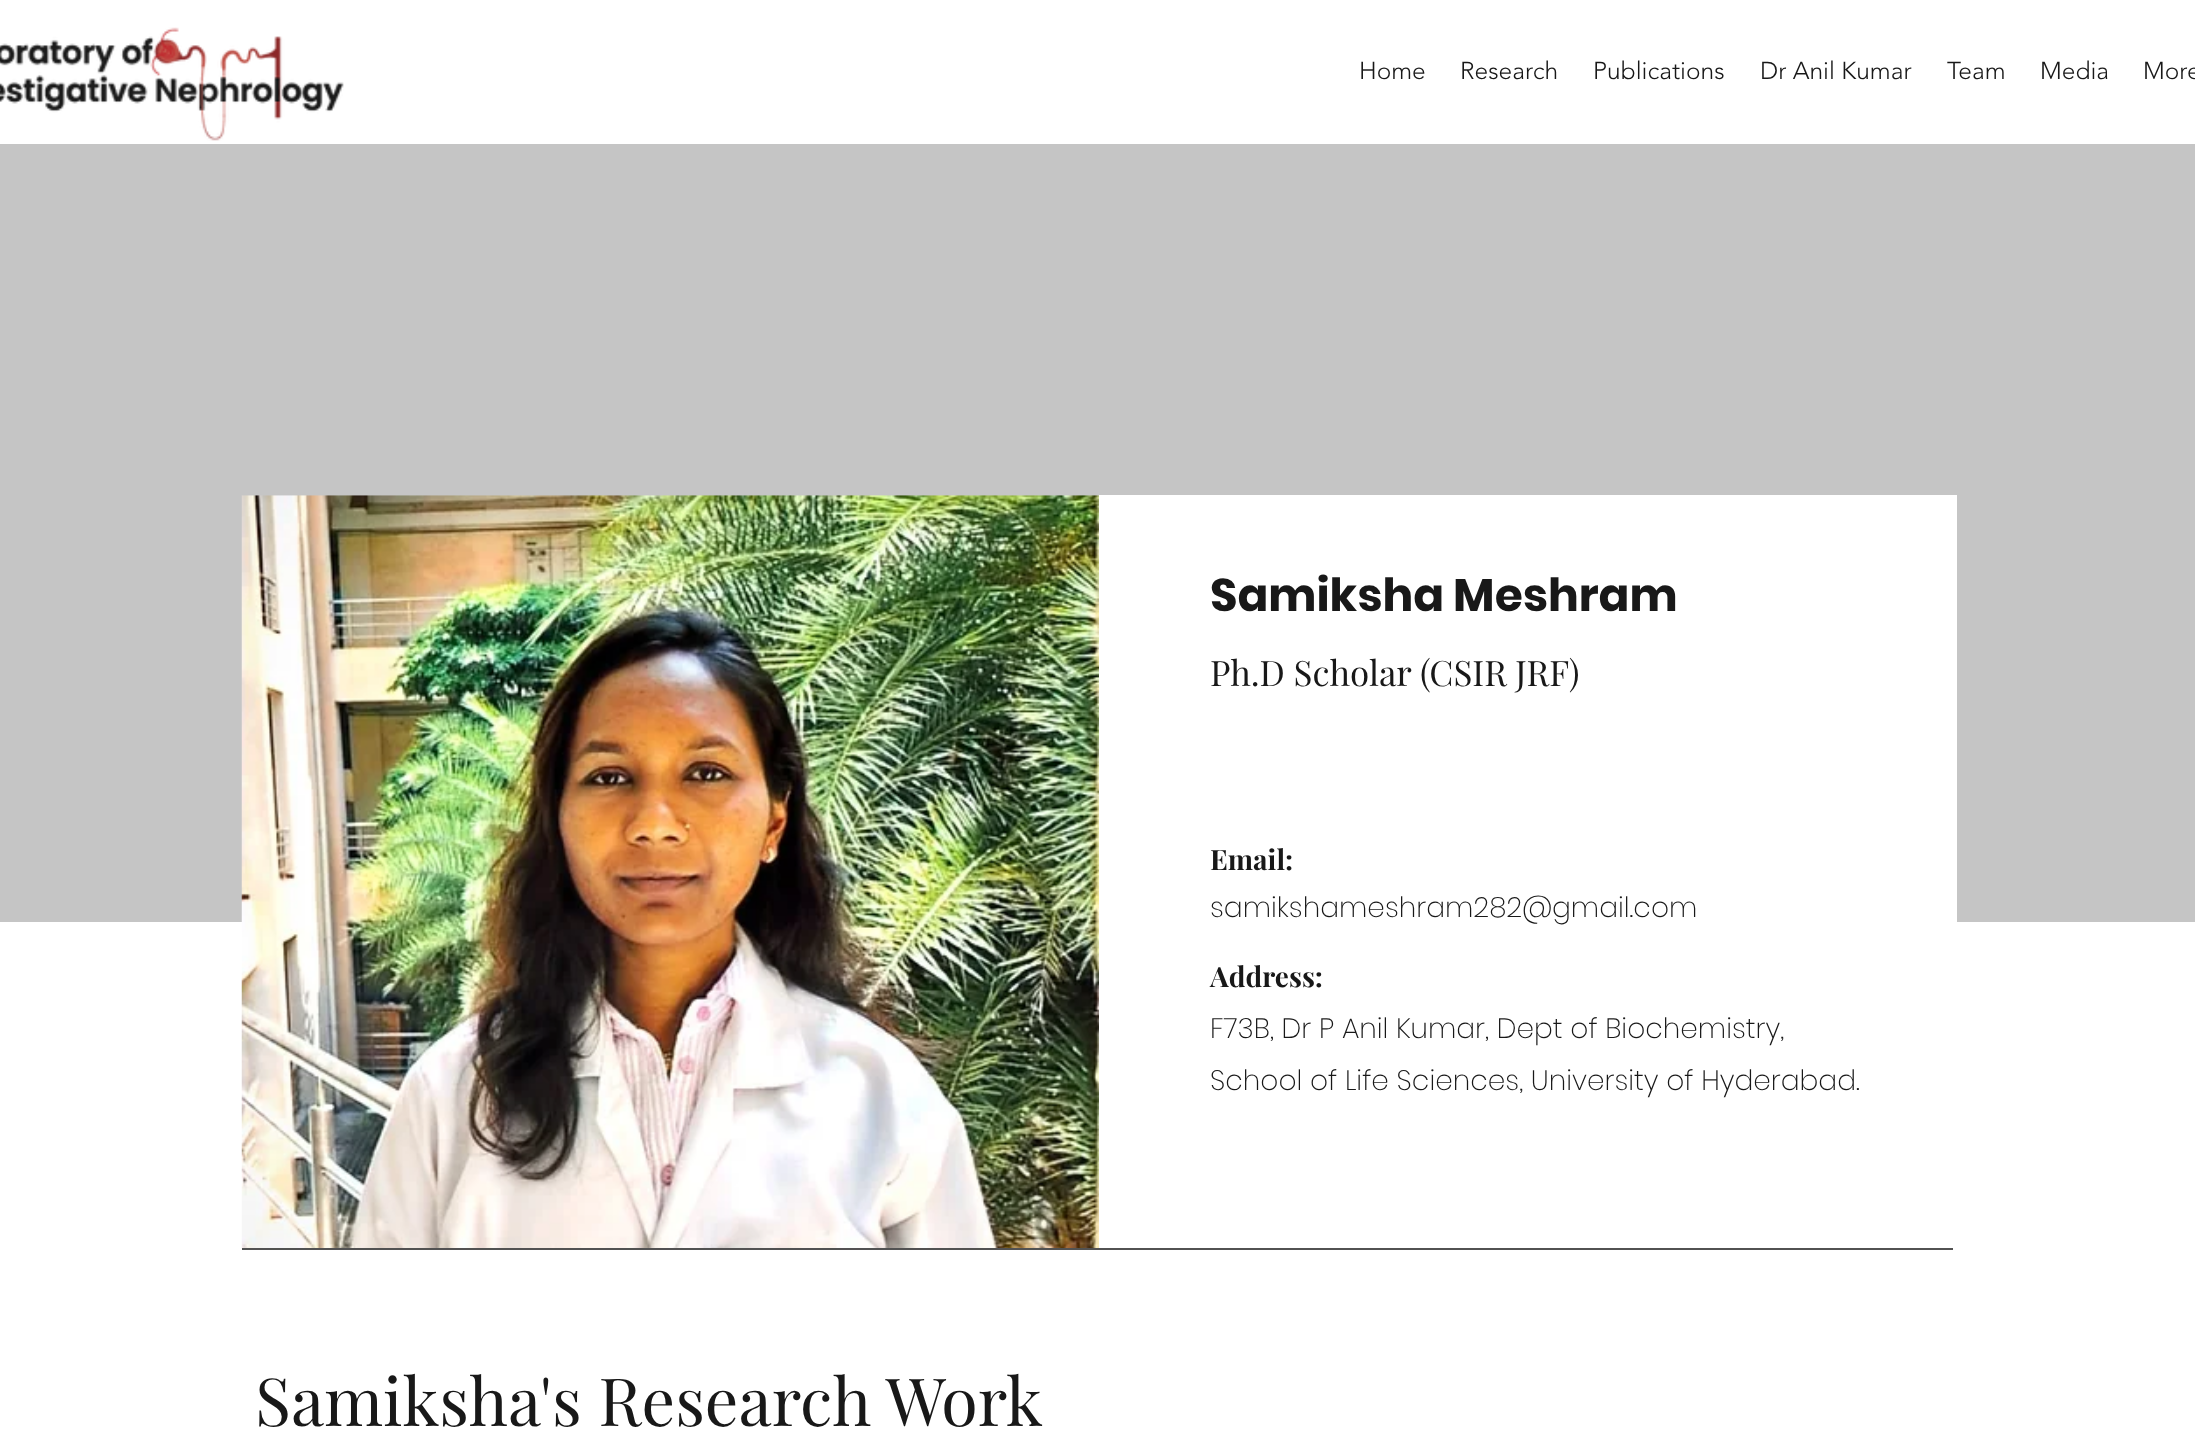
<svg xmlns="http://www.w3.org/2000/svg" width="2195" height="1433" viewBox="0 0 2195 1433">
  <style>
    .t1 { font: 300 24.5px 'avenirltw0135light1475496'; fill: #181818; }
    .t2 { font: bold 45.5px Poppins; fill: #181818; }
    .t3 { font: 35px Playfair Display; fill: #181818; }
    .t4 { font: bold 28px Playfair Display; fill: #181818; }
    .t5 { font: 200 28px Poppins; fill: #181818; }
    .t6 { font: 66.5px Playfair Display; fill: #181818; }
  </style>
  <rect width="100%" height="100%" fill="#fff"/>
  <image x="0" y="27" width="344" height="114" href="images/1.png"/>
  <text x="1359" y="79" class="t1">Home</text>
  <text x="1460" y="79" class="t1">Research</text>
  <text x="1593" y="79" class="t1">Publications</text>
  <text x="1760" y="79" class="t1">Dr Anil Kumar</text>
  <text x="1947" y="79" class="t1">Team</text>
  <text x="2040" y="79" class="t1">Media</text>
  <text x="2143" y="79" class="t1">More</text>
  <rect x="0" y="144" width="2195" height="778" fill="#c5c5c5"/>
  <rect x="1099" y="495" width="858" height="427" fill="#fff"/>
  <image x="241" y="495" width="858" height="755" href="images/2.png"/>
  <text x="1210" y="611" class="t2">Samiksha Meshram</text>
  <text x="1210" y="686" class="t3">Ph.D Scholar (CSIR JRF)</text>
  <text x="1210" y="870" class="t4">Email:</text>
  <text x="1210" y="917" class="t5">samikshameshram282@gmail.com</text>
  <text x="1210" y="987" class="t4">Address:</text>
  <text x="1210" y="1038" class="t5">F73B, Dr P Anil Kumar, Dept of Biochemistry,</text>
  <text x="1210" y="1090" class="t5">School of Life Sciences, University of Hyderabad.</text>
  <rect x="242" y="1248" width="1711" height="2" fill="#525252"/>
  <text x="255" y="1426" class="t6">Samiksha's Research Work</text>
</svg>
